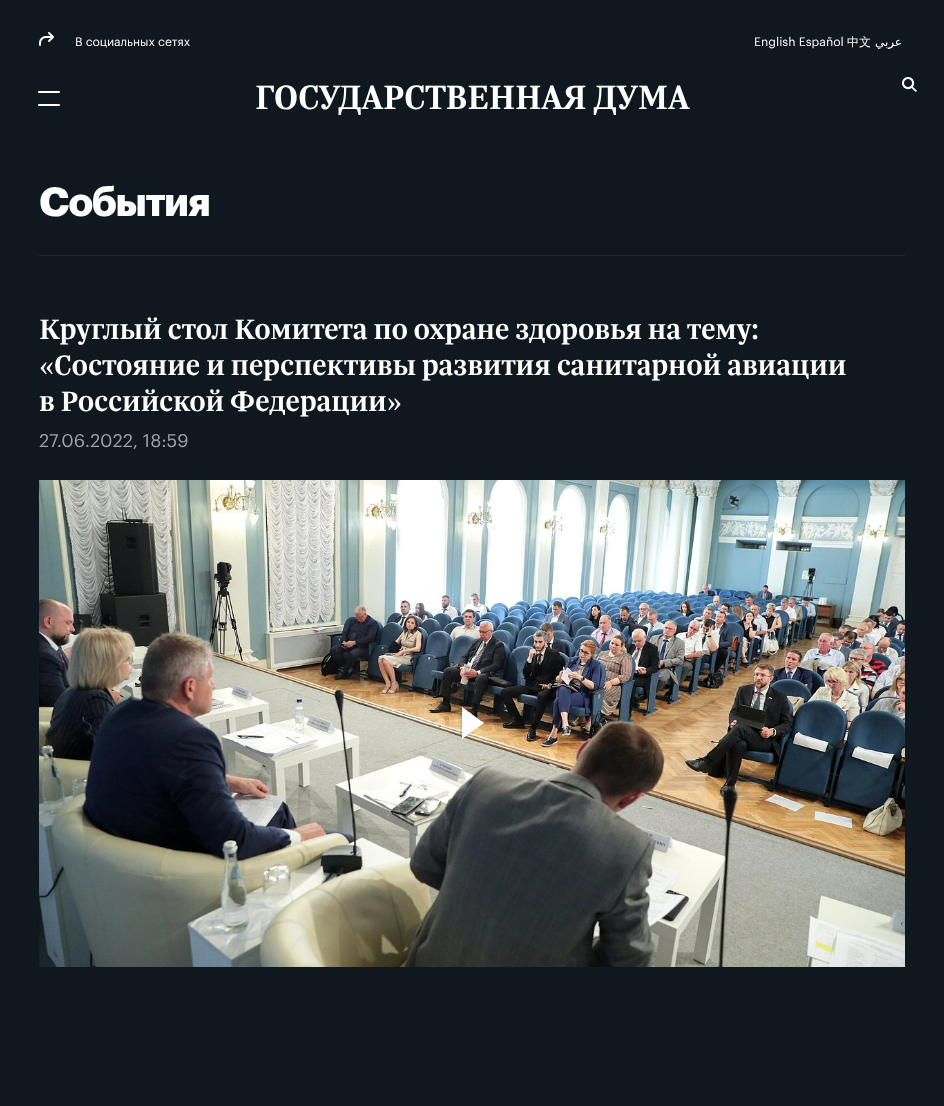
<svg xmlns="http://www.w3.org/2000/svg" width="944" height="1106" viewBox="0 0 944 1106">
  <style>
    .t1 { font: 12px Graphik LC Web; fill: #fff; }
    .t2 { font: 500 12px WenQuanYi Zen Hei; fill: #fff; }
    .t3 { font: 12px DejaVu Sans; direction: rtl; fill: #fff; }
    .t4 { font: 600 36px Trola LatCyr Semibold; letter-spacing: -0.25px; fill: #fff; }
    .t5 { font: bold 40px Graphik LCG; letter-spacing: -1.25px; fill: #fff; }
    .t6 { font: 600 30px Trola LatCyr Semibold; letter-spacing: -0.05px; fill: #fff; }
    .t7 { font: 30px Liberation Serif; letter-spacing: -0.05px; fill: #fff; }
    .t8 { font: 18px Graphik LC Web; fill: #9fa3a5; }
  </style>
  <rect width="100%" height="100%" fill="#10181f"/>
  <image x="39" y="32" width="15" height="14" href="images/1.png"/>
  <text x="75" y="46" class="t1">В социальных сетях</text>
  <text x="754" y="46" class="t1">English Español</text>
  <text x="847" y="46" class="t2">中文</text>
  <text x="902" y="46" class="t3">عربي</text>
  <image x="902" y="77" width="15" height="15" href="images/2.png"/>
  <rect x="38" y="91" width="22" height="2" rx="1" fill="#fff"/>
  <rect x="38" y="104" width="22" height="2" rx="1" fill="#fff"/>
  <text x="255" y="109" class="t4">ГОСУДАРСТВЕННАЯ ДУМА</text>
  <rect x="39" y="255" width="866" height="1" fill="#21282f"/>
  <text x="39" y="216" class="t5">События</text>
  <text x="39" y="339" class="t6">Круглый стол Комитета по охране здоровья на тему:</text>
  <text x="39" y="375" class="t7">«</text>
  <text x="54" y="375" class="t6">Состояние и перспективы развития санитарной авиации</text>
  <text x="39" y="411" class="t6">в Российской Федерации</text>
  <text x="387" y="411" class="t7">»</text>
  <text x="39" y="447" class="t8">27.06.2022, 18:59</text>
  <image x="39" y="480" width="866" height="487" href="images/3.png"/>
  <image x="460" y="707" width="24" height="32" href="images/4.png"/>
</svg>
